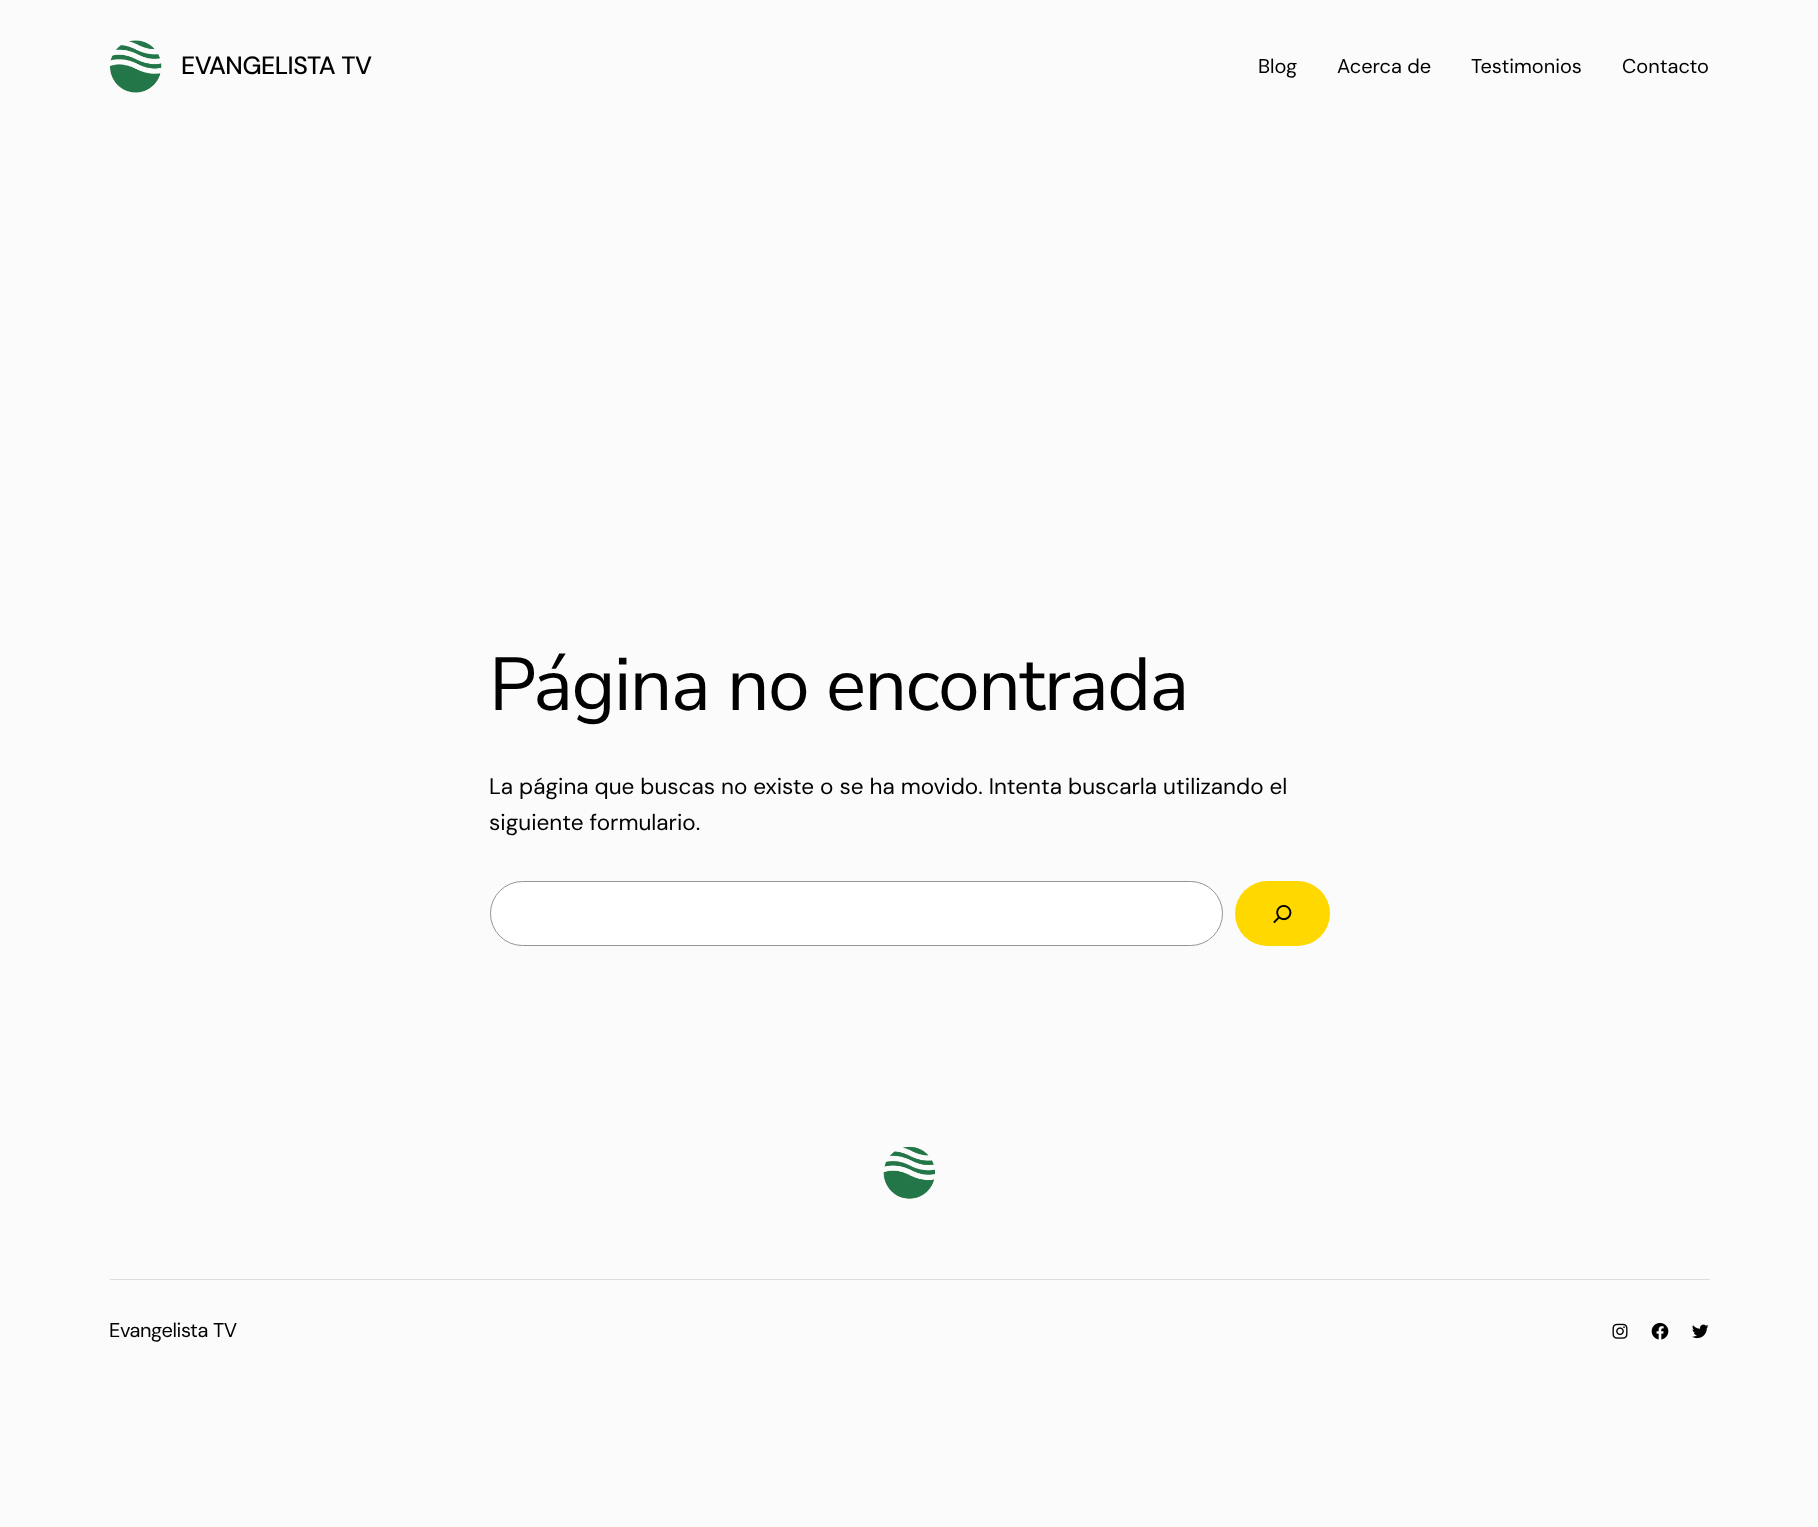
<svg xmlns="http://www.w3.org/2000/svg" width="1818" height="1527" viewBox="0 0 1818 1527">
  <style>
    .t1 { font: 500 25px DM Sans; letter-spacing: -0.5px; fill: #010101; }
    .t2 { font: 20px DM Sans; fill: #010101; }
    .t3 { font: 200 75px Nunito Sans; letter-spacing: -1.5px; fill: #010101; }
    .t4 { font: 22.5px DM Sans; fill: #010101; }
    .t5 { font: 20px DM Sans; letter-spacing: -0.4px; fill: #010101; }
  </style>
  <rect width="100%" height="100%" fill="#fbfbfb"/>
  <image x="110" y="40" width="52" height="53" href="images/1.png"/>
  <text x="181" y="74" class="t1">EVANGELISTA TV</text>
  <text x="1258" y="73" class="t2">Blog</text>
  <text x="1337" y="73" class="t2">Acerca de</text>
  <text x="1471" y="73" class="t2">Testimonios</text>
  <text x="1622" y="73" class="t2">Contacto</text>
  <text x="489" y="710" class="t3">Página no encontrada</text>
  <text x="489" y="794" class="t4">La página que buscas no existe o se ha movido. Intenta buscarla utilizando el</text>
  <text x="489" y="830" class="t4">siguiente formulario.</text>
  <rect x="490.5" y="881.5" width="732" height="64" rx="32" fill="#fff" stroke="#949494"/>
  <rect x="1235" y="881" width="95" height="65" rx="32.5" fill="#ffd800"/>
  <image x="1273" y="905" width="19" height="19" href="images/2.png"/>
  <image x="883" y="1146" width="52" height="53" href="images/3.png"/>
  <rect x="110" y="1279" width="1600" height="1" fill="#dcdcdc"/>
  <text x="109" y="1337" class="t5">Evangelista TV</text>
  <image x="1612" y="1323" width="16" height="16" href="images/4.png"/>
  <image x="1651" y="1322" width="18" height="18" href="images/5.png"/>
  <image x="1692" y="1324" width="17" height="15" href="images/6.png"/>
</svg>
